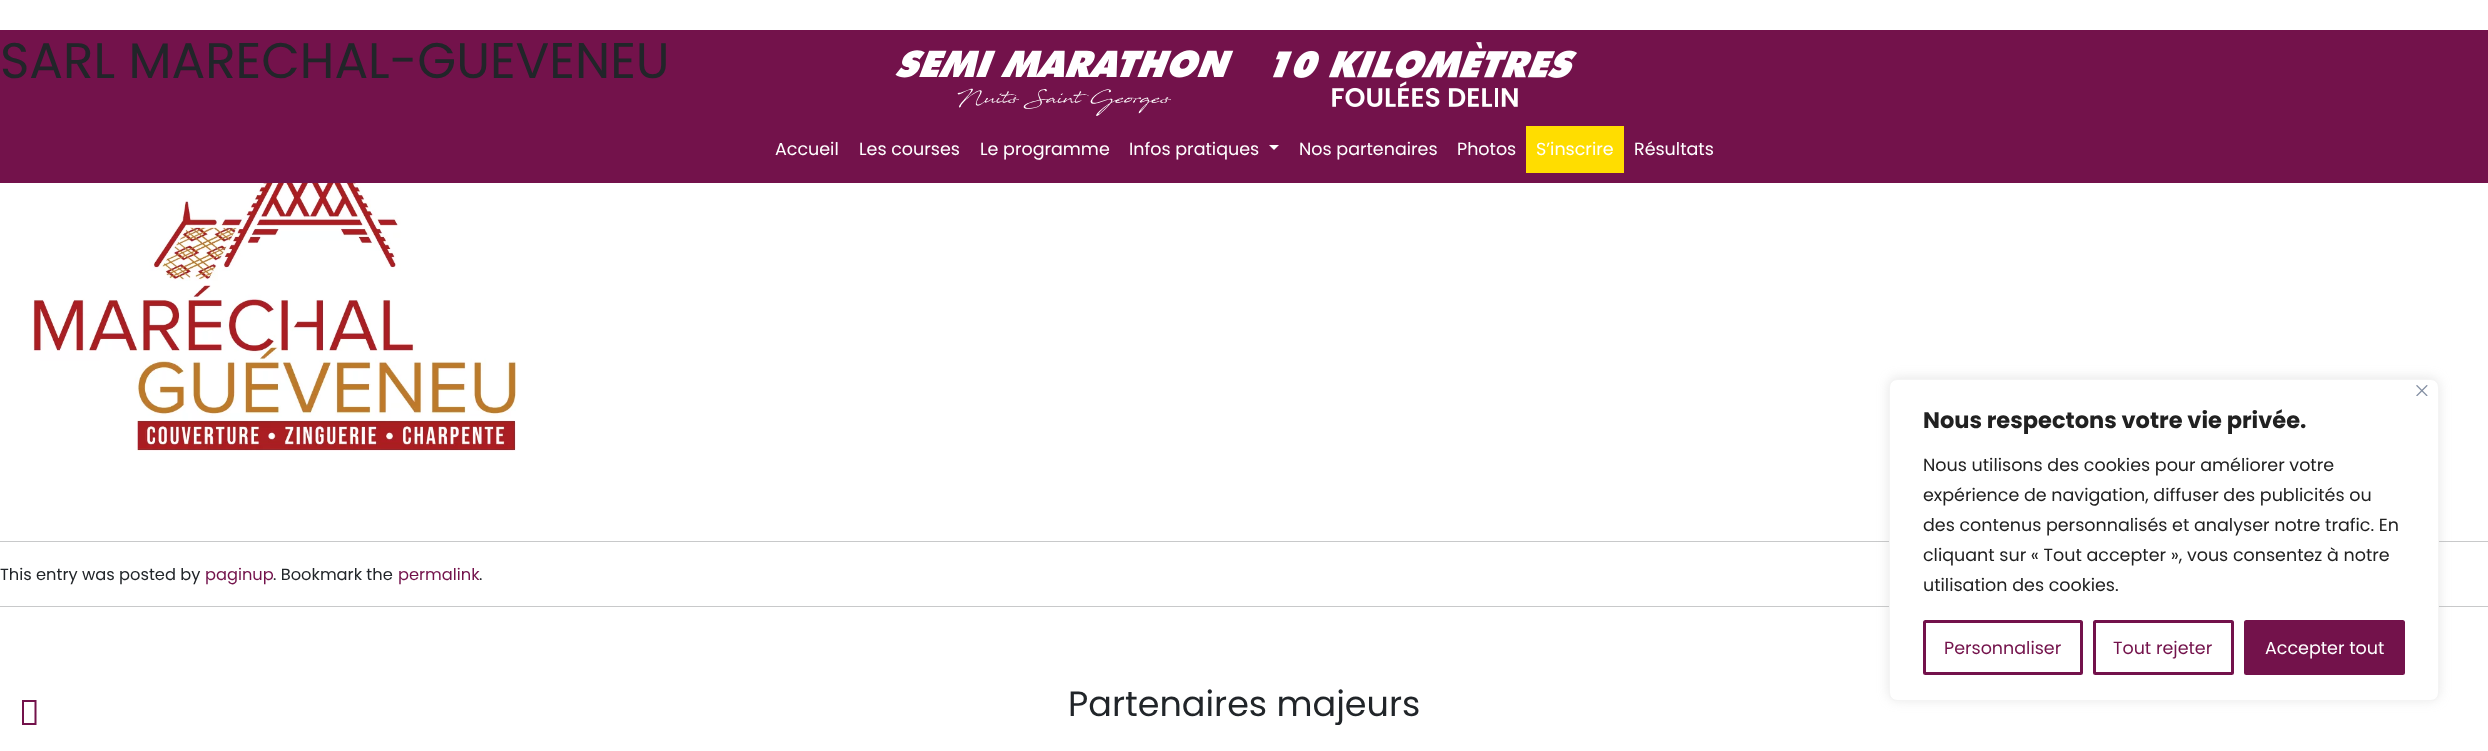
<svg xmlns="http://www.w3.org/2000/svg" width="2488" height="751" viewBox="0 0 2488 751">
  <style>
    .t1 { font: 50px Poppins; fill: #212529; }
    .t2 { font: 16.25px Poppins; fill: #212529; }
    .t3 { font: 16.25px Poppins; fill: #73124b; }
    .t4 { font: 17.5px Poppins; fill: #fff; }
    .t5 { font: 35px Poppins; fill: #212529; }
    .t6 { font: bold 22.5px Poppins; fill: #212121; }
    .t7 { font: 17.5px Poppins; fill: #212121; }
    .t8 { font: 17.5px Poppins; fill: #73124b; }
  </style>
  <rect width="100%" height="100%" fill="#fff"/>
  <rect x="0" y="30" width="2488" height="153" fill="#73124b"/>
  <text x="0" y="78" class="t1">SARL MARECHAL-GUEVENEU</text>
  <image x="33" y="183" width="483" height="268" href="images/1.png"/>
  <rect x="0" y="541" width="2488" height="1" fill="#c8c9ca"/>
  <text x="0" y="580" class="t2">This entry was posted by</text>
  <text x="205" y="580" class="t3">paginup</text>
  <text x="273" y="580" class="t2">. Bookmark the</text>
  <text x="398" y="580" class="t3">permalink</text>
  <text x="479" y="580" class="t2">.</text>
  <rect x="0" y="606" width="2488" height="1" fill="#c8c9ca"/>
  <image x="895" y="50" width="339" height="66" href="images/2.png"/>
  <image x="1272" y="42" width="305" height="65" href="images/3.png"/>
  <text x="775" y="155" class="t4">Accueil</text>
  <text x="859" y="155" class="t4">Les courses</text>
  <text x="980" y="155" class="t4">Le programme</text>
  <text x="1129" y="155" class="t4">Infos pratiques</text>
  <path d="M1269 145H1279L1274 150Z" fill="#fff"/>
  <text x="1299" y="155" class="t4">Nos partenaires</text>
  <text x="1457" y="155" class="t4">Photos</text>
  <rect x="1526" y="126" width="98" height="47" fill="#fd0"/>
  <text x="1536" y="155" class="t4">S’inscrire</text>
  <text x="1634" y="155" class="t4">Résultats</text>
  <text x="1068" y="716" class="t5">Partenaires majeurs</text>
  <rect x="1889" y="378" width="550" height="322" rx="8" fill="#acabab4d" filter="blur(6px)"/>
  <rect x="1889.5" y="379.5" width="549" height="321" rx="7.5" fill="#fff" stroke="#f4f4f4"/>
  <image x="2416" y="385" width="12" height="11" href="images/4.png"/>
  <text x="1923" y="428" class="t6">Nous respectons votre vie privée.</text>
  <text x="1923" y="471" class="t7">Nous utilisons des cookies pour améliorer votre</text>
  <text x="1923" y="501" class="t7">expérience de navigation, diffuser des publicités ou</text>
  <text x="1923" y="531" class="t7">des contenus personnalisés et analyser notre trafic. En</text>
  <text x="1923" y="561" class="t7">cliquant sur « Tout accepter », vous consentez à notre</text>
  <text x="1923" y="591" class="t7">utilisation des cookies.</text>
  <rect x="1924.5" y="621.5" width="157" height="52" rx="1" fill="none" stroke="#73124b" stroke-width="3"/>
  <text x="1944" y="654" class="t8">Personnaliser</text>
  <rect x="2094.5" y="621.5" width="138" height="52" rx="1" fill="none" stroke="#73124b" stroke-width="3"/>
  <text x="2113" y="654" class="t8">Tout rejeter</text>
  <rect x="2245.5" y="621.5" width="158" height="52" rx="1" fill="#73124b" stroke="#73124b" stroke-width="3"/>
  <text x="2265" y="654" class="t4">Accepter tout</text>
  <path d="M22 725V700H36.5V725ZM24 723H34.5V702H24Z" fill="#73124b"/>
</svg>
